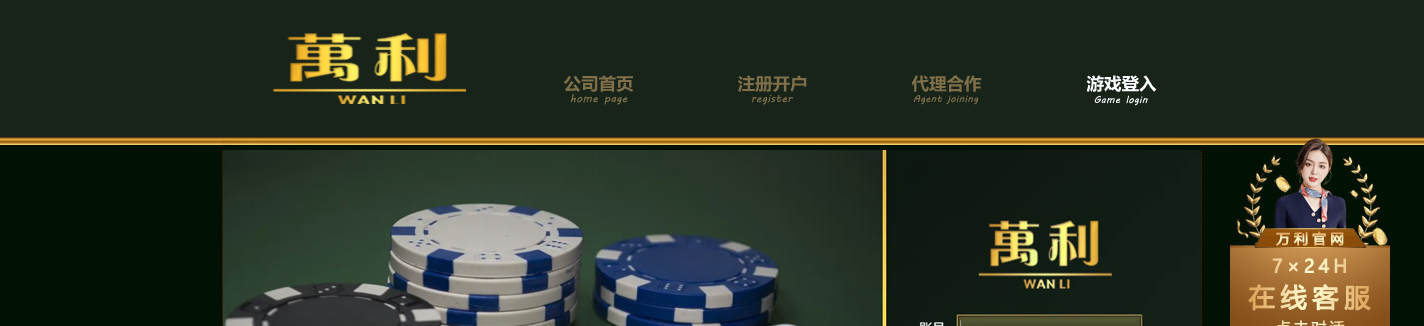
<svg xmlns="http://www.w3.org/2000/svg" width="1424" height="326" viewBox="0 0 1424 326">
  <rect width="100%" height="100%" fill="#011104"/>
  <image x="0" y="0" width="1424" height="145" href="images/1.png"/>
  <image x="222" y="140" width="979" height="5" href="images/2.png"/>
  <image x="273" y="33" width="193" height="71" href="images/3.png"/>
  <image x="564" y="75" width="70" height="30" href="images/4.png"/>
  <image x="738" y="75" width="69" height="30" href="images/5.png"/>
  <image x="912" y="75" width="70" height="30" href="images/6.png"/>
  <image x="1086" y="75" width="70" height="31" href="images/7.png"/>
  <image x="122" y="150" width="1180" height="176" href="images/8.png"/>
  <image x="222" y="150" width="980" height="176" href="images/9.png"/>
  <image x="223" y="150" width="978" height="176" href="images/10.png"/>
  <image x="1230" y="138" width="160" height="188" href="images/11.png"/>
</svg>
